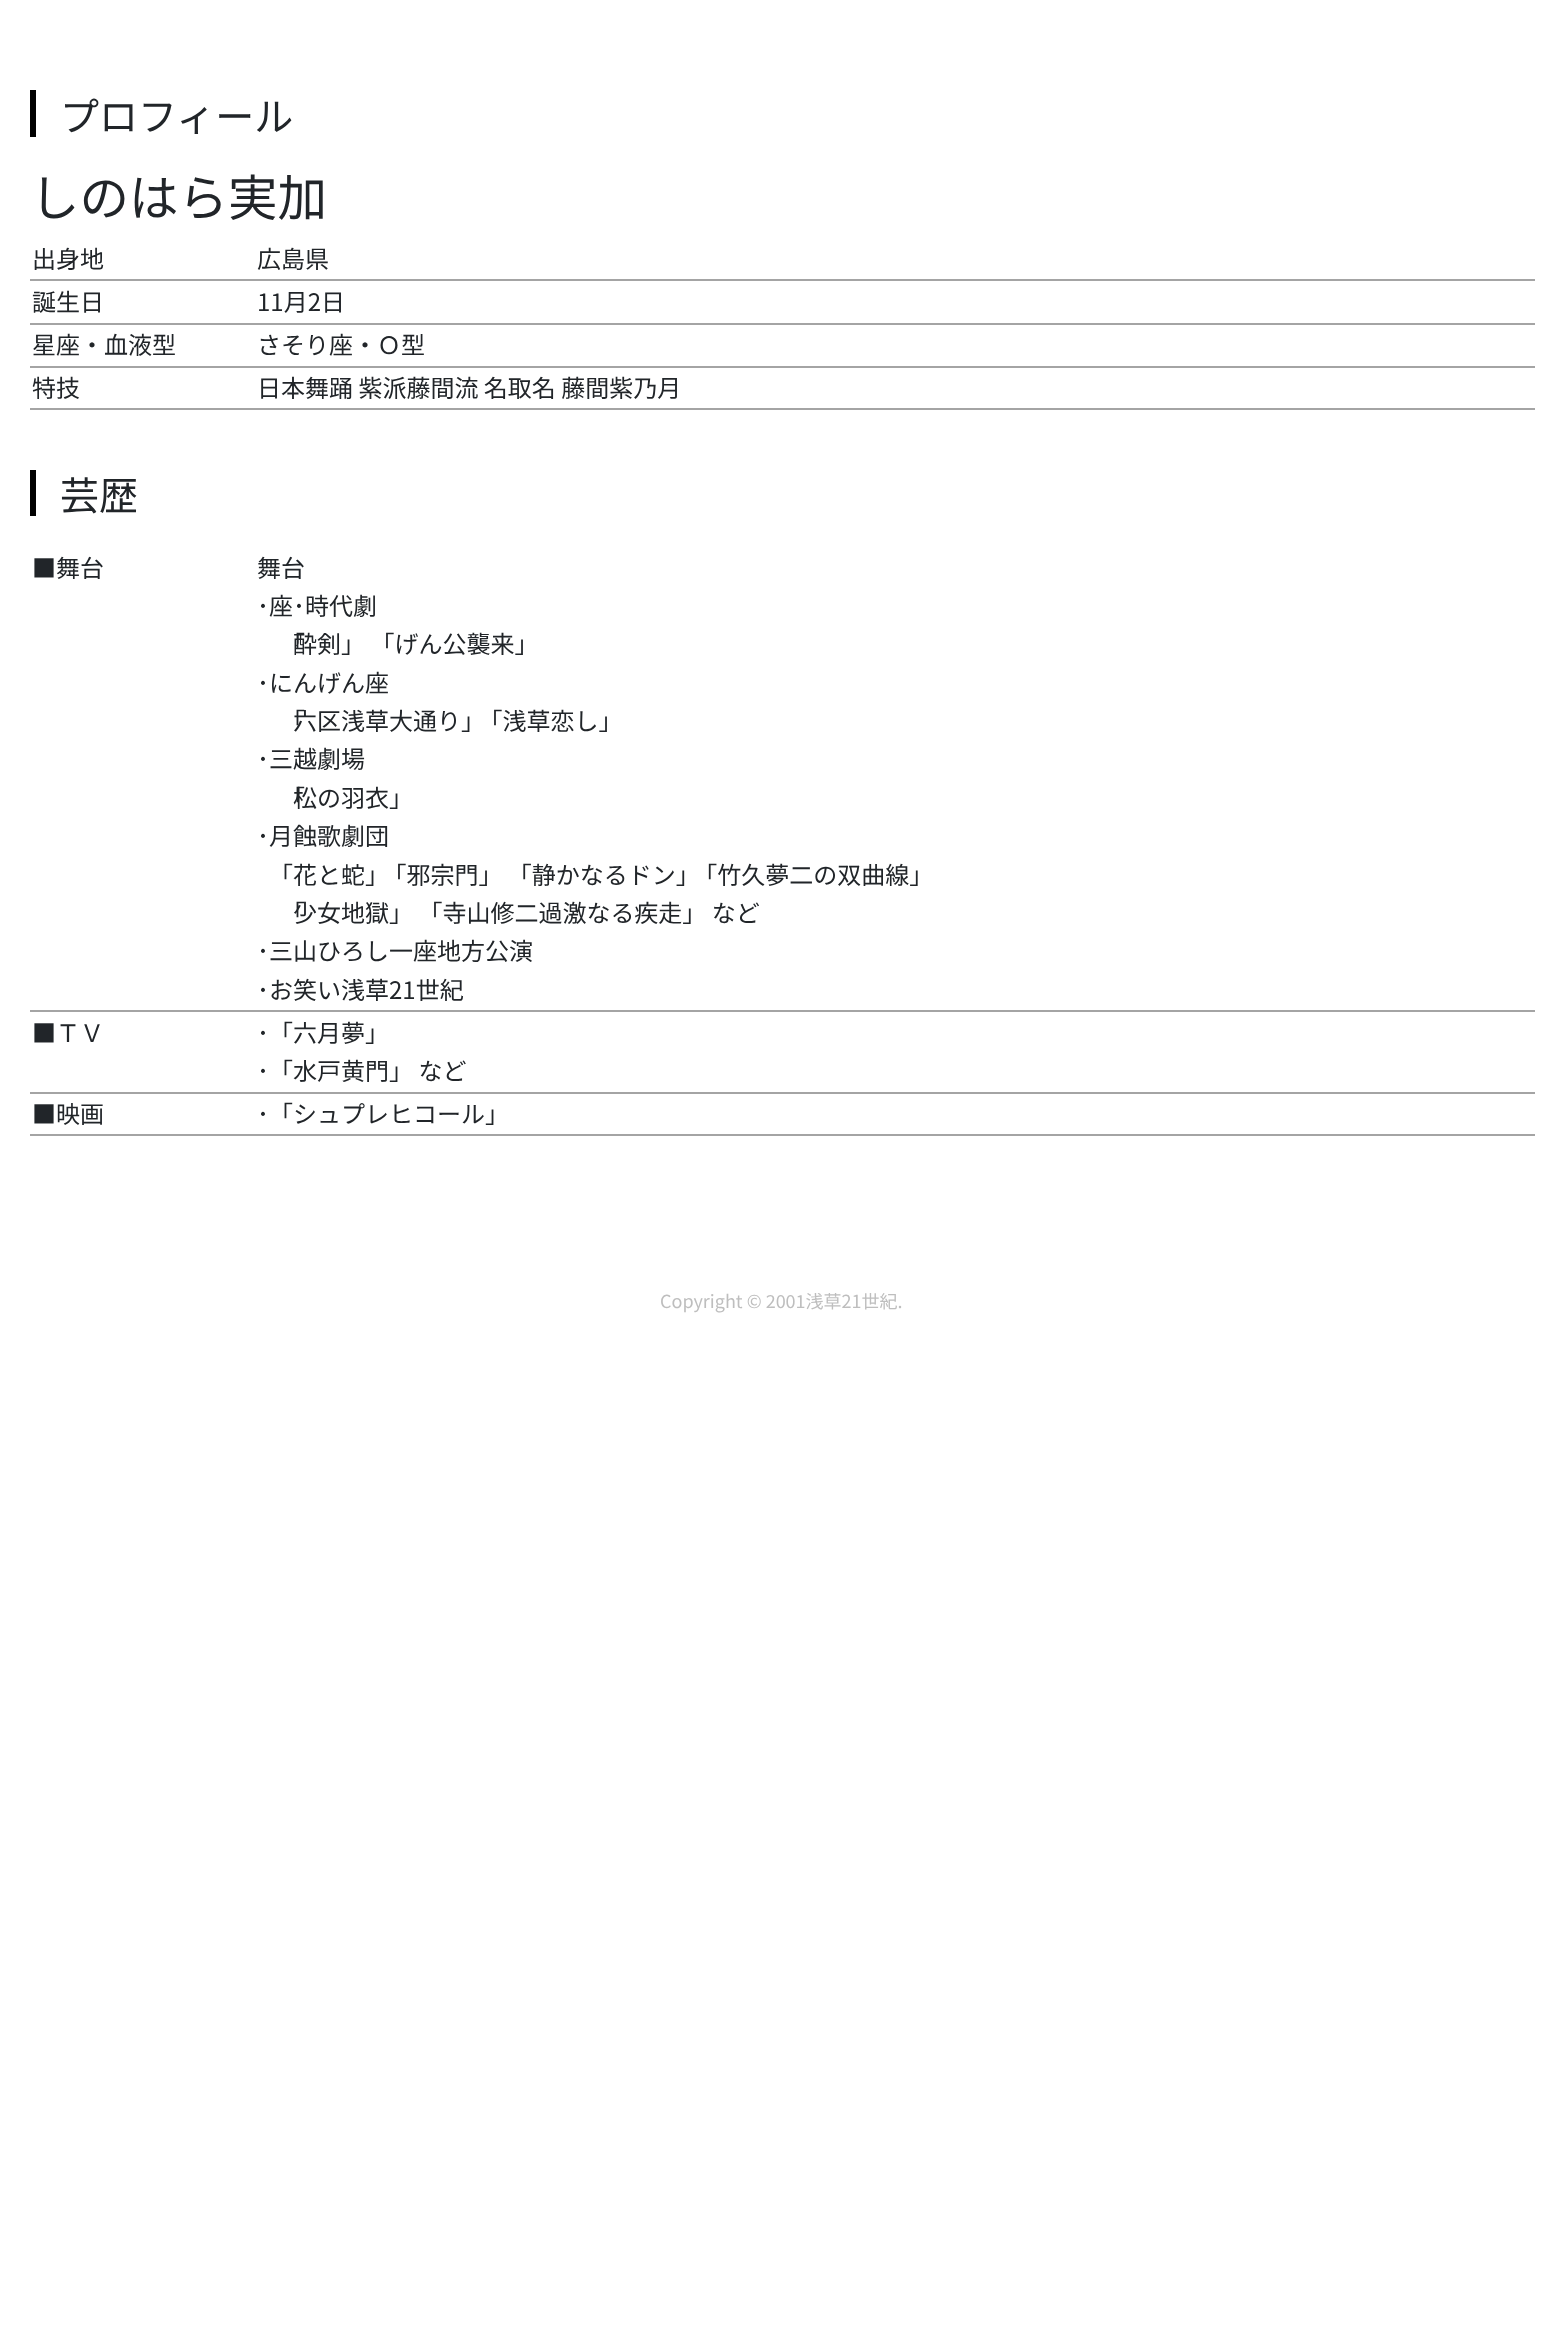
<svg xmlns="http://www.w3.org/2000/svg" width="1563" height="2348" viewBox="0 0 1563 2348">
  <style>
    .t1 { font: 39px Noto Sans JP; fill: #212529; }
    .t2 { font: 49.5px Noto Sans JP; fill: #212529; }
    .t3 { font: 24px Noto Sans JP; fill: #212529; }
    .t4 { font: 18px Noto Sans JP; fill: #bebebe; }
  </style>
  <rect width="100%" height="100%" fill="#fff"/>
  <rect x="30" y="90" width="6" height="47" fill="#000"/>
  <text x="60" y="131" class="t1">プロフィール</text>
  <text x="30" y="216" class="t2">しのはら実加</text>
  <text x="32" y="268" class="t3">出身地</text>
  <rect x="30" y="279" width="1505" height="2" fill="#a4a4a4"/>
  <text x="257" y="268" class="t3">広島県</text>
  <text x="32" y="311" class="t3">誕生日</text>
  <rect x="30" y="323" width="1505" height="2" fill="#a4a4a4"/>
  <text x="257" y="311" class="t3">11月2日</text>
  <text x="32" y="354" class="t3">星座・血液型</text>
  <rect x="30" y="366" width="1505" height="2" fill="#a4a4a4"/>
  <text x="257" y="354" class="t3">さそり座・Ｏ型</text>
  <text x="32" y="397" class="t3">特技</text>
  <rect x="30" y="408" width="1505" height="2" fill="#a4a4a4"/>
  <text x="257" y="397" class="t3">日本舞踊 紫派藤間流 名取名 藤間紫乃月</text>
  <rect x="30" y="470" width="6" height="46" fill="#000"/>
  <text x="60" y="510" class="t1">芸歴</text>
  <text x="32" y="577" class="t3">■舞台</text>
  <rect x="30" y="1010" width="1505" height="2" fill="#a4a4a4"/>
  <text x="257" y="577" class="t3">舞台</text>
  <text x="257" y="615" class="t3">･座･時代劇</text>
  <text x="281" y="653" class="t3">「</text>
  <text x="293" y="653" class="t3">酔剣」 「げん公襲来」</text>
  <text x="257" y="692" class="t3">･にんげん座</text>
  <text x="281" y="730" class="t3">「</text>
  <text x="293" y="730" class="t3">六区浅草大通り」 ｢浅草恋し｣</text>
  <text x="257" y="768" class="t3">･三越劇場</text>
  <text x="281" y="807" class="t3">「</text>
  <text x="293" y="807" class="t3">松の羽衣」</text>
  <text x="257" y="845" class="t3">･月蝕歌劇団</text>
  <text x="281" y="884" class="t3">｢花と蛇｣ 「邪宗門」 「静かなるドン」 ｢竹久夢二の双曲線｣</text>
  <text x="281" y="922" class="t3">「</text>
  <text x="293" y="922" class="t3">少女地獄」 「寺山修二過激なる疾走」 など</text>
  <text x="257" y="960" class="t3">･三山ひろし一座地方公演</text>
  <text x="257" y="999" class="t3">･お笑い浅草21世紀</text>
  <text x="32" y="1042" class="t3">■ＴＶ</text>
  <rect x="30" y="1092" width="1505" height="2" fill="#a4a4a4"/>
  <text x="257" y="1042" class="t3">･「六月夢」</text>
  <text x="257" y="1080" class="t3">･「水戸黄門」 など</text>
  <text x="32" y="1123" class="t3">■映画</text>
  <rect x="30" y="1134" width="1505" height="2" fill="#a4a4a4"/>
  <text x="257" y="1123" class="t3">･「シュプレヒコール」</text>
  <text x="660" y="1308" class="t4">Copyright © 2001浅草21世紀.</text>
</svg>
